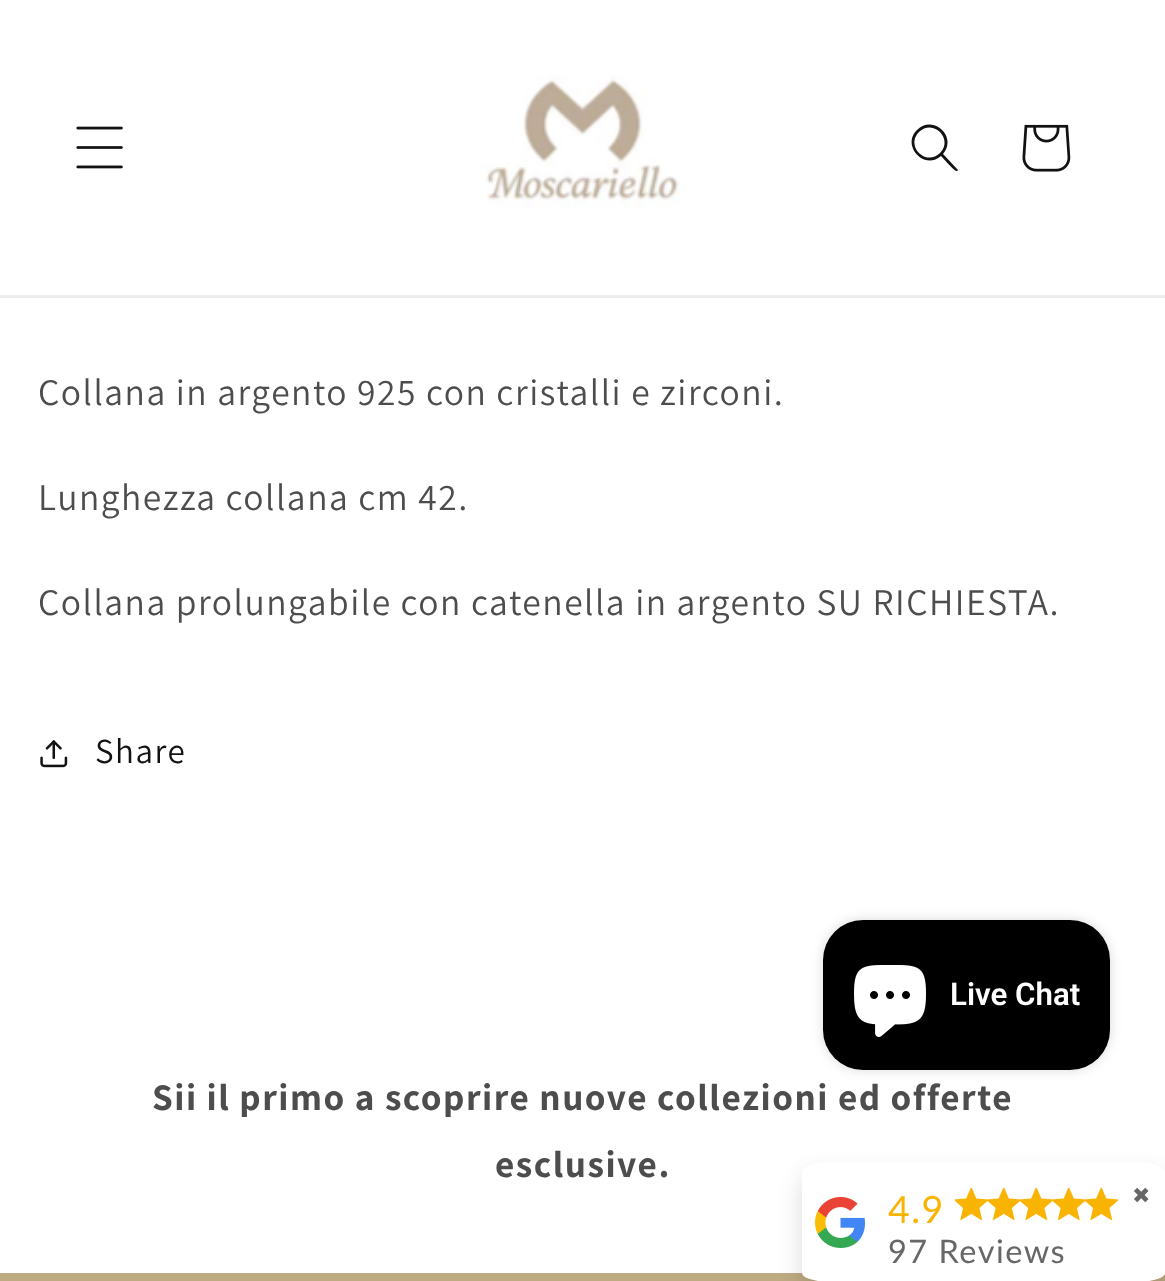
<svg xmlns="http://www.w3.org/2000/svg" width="1165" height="1281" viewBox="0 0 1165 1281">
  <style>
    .t1 { font: 37.5px Assistant; letter-spacing: 1.5px; fill: #4d4d4d; }
    .t2 { font: 35px Assistant; letter-spacing: 1.5px; fill: #121212; }
    .t3 { font: 600 31.25px Roboto; fill: #fff; }
    .t4 { font: bold 37.5px Assistant; letter-spacing: 1.5px; fill: #4d4d4d; }
    .t5 { font: 37.5px Lato; letter-spacing: 1.5px; fill: #f9b403; }
    .t6 { font: 32.5px Lato; letter-spacing: 1.5px; fill: #676767; }
    .t7 { font: 22px DejaVu Sans; letter-spacing: 1.5px; fill: #676767; }
  </style>
  <rect width="100%" height="100%" fill="#fff"/>
  <rect x="0" y="295" width="1165" height="3" fill="#ececec"/>
  <image x="76" y="126" width="47" height="43" href="images/1.png"/>
  <image x="480" y="75" width="200" height="133" href="images/2.png"/>
  <path d="M940 153C926 167 905 146 919 132C933 118 954 139 940 153ZM941 156C924 171 901 145 917 130C933 114 958 137 943 154L958 170L957 171C955 172 943 158 941 156Z" fill="#121212" fill-rule="evenodd"/>
  <image x="1022" y="124" width="49" height="48" href="images/3.png"/>
  <text x="38" y="405" class="t1">Collana in argento 925 con cristalli e zirconi.</text>
  <text x="38" y="510" class="t1">Lunghezza collana cm 42.</text>
  <text x="38" y="615" class="t1">Collana prolungabile con catenella in argento SU RICHIESTA.</text>
  <image x="40" y="740" width="28" height="28" href="images/4.png"/>
  <text x="95" y="763" class="t2">Share</text>
  <rect x="823" y="920" width="287" height="150" rx="40" fill="#00000026" filter="blur(6px)"/>
  <rect x="823" y="920" width="287" height="150" rx="40" fill="#000"/>
  <image x="854" y="965" width="72" height="72" href="images/5.png"/>
  <text x="950" y="1005" class="t3">Live Chat</text>
  <text x="152" y="1110" class="t4">Sii il primo a scoprire nuove collezioni ed offerte</text>
  <text x="495" y="1177" class="t4">esclusive.</text>
  <rect x="0" y="1273" width="1165" height="8" fill="#beab82"/>
  <rect x="803" y="1175" width="362" height="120" rx="10" fill="#00000026" filter="blur(12.5px)"/>
  <path d="M832 1162H1136C1152 1162 1165 1167 1165 1172V1273C1165 1278 1152 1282 1136 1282H832C815 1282 802 1278 802 1273V1172C802 1167 815 1162 832 1162Z" fill="#fff"/>
  <image x="815" y="1197" width="50" height="51" href="images/6.png"/>
  <text x="888" y="1223" class="t5">4.9</text>
  <image x="955" y="1188" width="33" height="32" href="images/7.png"/>
  <image x="988" y="1188" width="32" height="32" href="images/8.png"/>
  <image x="1020" y="1188" width="33" height="32" href="images/7.png"/>
  <image x="1053" y="1188" width="32" height="32" href="images/8.png"/>
  <image x="1085" y="1188" width="33" height="32" href="images/9.png"/>
  <text x="888" y="1263" class="t6">97 Reviews</text>
  <text x="1132" y="1203" class="t7">✖</text>
</svg>
